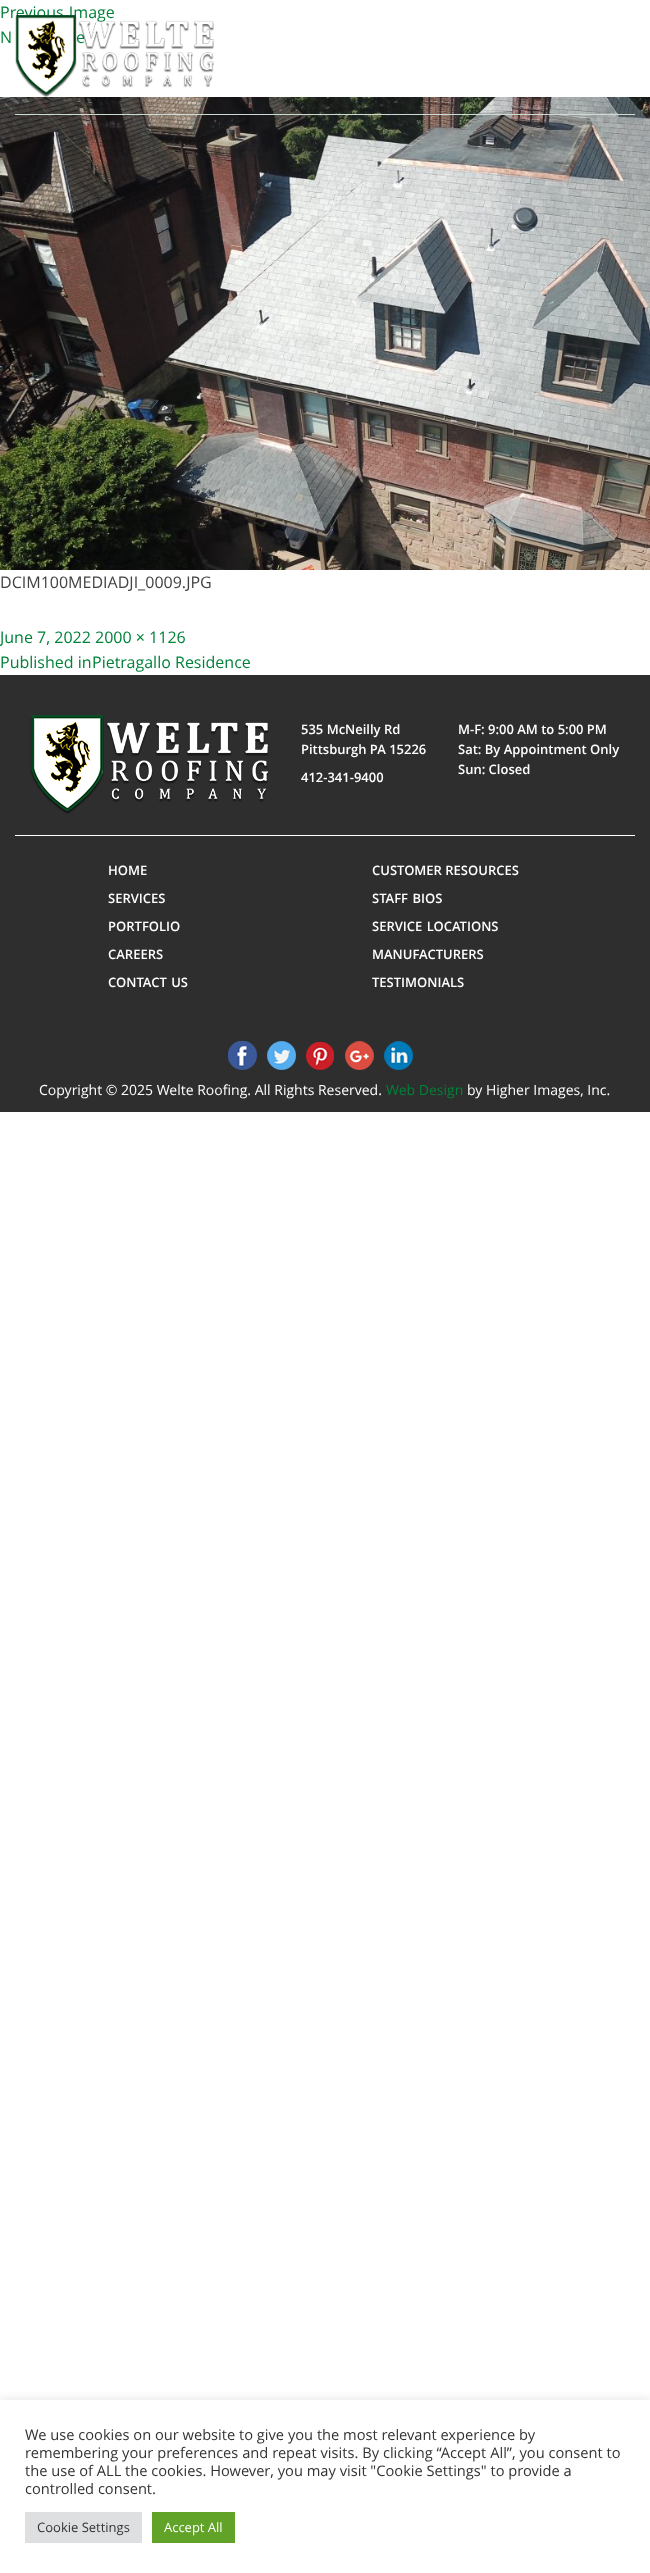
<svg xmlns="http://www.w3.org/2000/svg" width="650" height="2573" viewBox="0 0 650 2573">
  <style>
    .t1 { font: 16px Open Sans; fill: #00823a; }
    .t2 { font: 16px Open Sans; fill: #434343; }
    .t3 { font: 600 13px Open Sans; fill: #fff; }
    .t4 { font: 14px Open Sans; fill: #fff; }
    .t5 { font: 14px Open Sans; fill: #00823a; }
    .t6 { font: 14.65px Open Sans; fill: #333; }
    .t7 { font: 13px Open Sans; fill: #333; }
    .t8 { font: 13px Open Sans; fill: #fff; }
  </style>
  <defs>
    <clipPath id="clip1"><rect x="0" y="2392" width="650" height="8"/></clipPath>
  </defs>
  <rect width="100%" height="100%" fill="#fff"/>
  <text x="0" y="18" word-spacing="1" class="t1">Previous Image</text>
  <text x="0" y="43" class="t1">N</text>
  <text x="76" y="43" class="t1">e</text>
  <image x="0" y="97" width="650" height="473" href="images/1.png"/>
  <text x="0" y="588" class="t2">DCIM100MEDIADJI_0009.JPG</text>
  <text x="0" y="643" class="t1">June 7, 2022 2000 × 1126</text>
  <text x="0" y="668" class="t1">Published in</text>
  <text x="92" y="668" class="t1">Pietragallo Residence</text>
  <rect x="15" y="114" width="620" height="1" fill="#ccdbd2"/>
  <image x="15" y="15" width="199" height="82" href="images/2.png"/>
  <rect x="0" y="675" width="650" height="437" fill="#2e2e2e"/>
  <image x="30" y="715" width="239" height="99" href="images/3.png"/>
  <text x="301" y="734" class="t3">535 McNeilly Rd</text>
  <text x="301" y="754" class="t3">Pittsburgh PA 15226</text>
  <text x="301" y="782" class="t3">412-341-9400</text>
  <text x="458" y="734" class="t3">M-F: 9:00 AM to 5:00 PM</text>
  <text x="458" y="754" class="t3">Sat: By Appointment Only</text>
  <text x="458" y="774" class="t3">Sun: Closed</text>
  <rect x="15" y="835" width="620" height="1" fill="#fff"/>
  <text x="108" y="875" class="t3">HOME</text>
  <text x="108" y="903" class="t3">SERVICES</text>
  <text x="108" y="931" class="t3">PORTFOLIO</text>
  <text x="108" y="959" class="t3">CAREERS</text>
  <text x="108" y="987" word-spacing="1" class="t3">CONTACT US</text>
  <text x="372" y="875" class="t3">CUSTOMER RESOURCES</text>
  <text x="372" y="903" word-spacing="1" class="t3">STAFF BIOS</text>
  <text x="372" y="931" word-spacing="1" class="t3">SERVICE LOCATIONS</text>
  <text x="372" y="959" class="t3">MANUFACTURERS</text>
  <text x="372" y="987" class="t3">TESTIMONIALS</text>
  <image x="228" y="1041" width="29" height="29" href="images/4.png"/>
  <image x="267" y="1041" width="29" height="29" href="images/5.png"/>
  <image x="306" y="1042" width="28" height="28" href="images/6.png"/>
  <image x="345" y="1041" width="29" height="29" href="images/7.png"/>
  <image x="384" y="1041" width="29" height="29" href="images/8.png"/>
  <text x="39" y="1095" class="t4">Copyright © 2025 Welte Roofing. All Rights Reserved.</text>
  <text x="386" y="1095" class="t5">Web Design</text>
  <text x="467" y="1095" class="t4">by Higher Images, Inc.</text>
  <g clip-path="url(#clip1)">
    <rect x="0" y="2399" width="650" height="173" fill="#acabab4d" filter="blur(5px)"/>
  </g>
  <text x="25" y="2440" class="t6">We use cookies on our website to give you the most relevant experience by</text>
  <text x="25" y="2458" word-spacing="0.1" class="t6">remembering your preferences and repeat visits. By clicking “Accept All”, you consent to</text>
  <text x="25" y="2476" class="t6">the use of ALL the cookies. However, you may visit "Cookie Settings" to provide a</text>
  <text x="25" y="2494" class="t6">controlled consent.</text>
  <rect x="25" y="2512" width="117" height="31" fill="#dedfe0"/>
  <text x="37" y="2532" class="t7">Cookie Settings</text>
  <rect x="152" y="2512" width="83" height="31" fill="#61a229"/>
  <text x="164" y="2532" class="t8">Accept All</text>
</svg>
